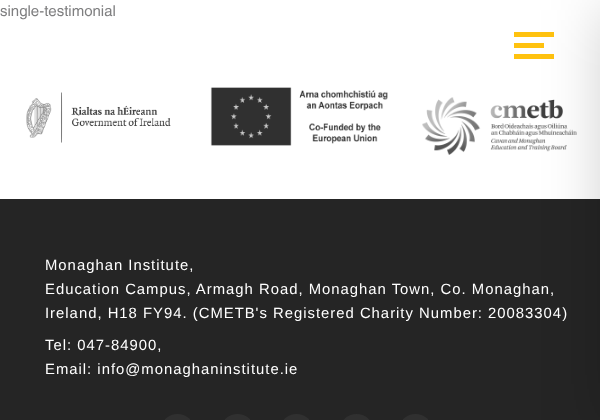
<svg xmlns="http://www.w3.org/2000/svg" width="600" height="420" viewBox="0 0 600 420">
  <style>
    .t1 { font: 500 15px Helvetica; fill: #7f7f80; }
    .t2 { font: 14.85px Liberation Sans; letter-spacing: 1px; fill: #fff; }
  </style>
  <rect width="100%" height="100%" fill="#fff"/>
  <rect x="0" y="199" width="600" height="221" fill="#252525"/>
  <image x="422" y="97" width="155" height="58" href="images/3.png"/>
  <rect x="514" y="32" width="40" height="5" fill="#ffc20f"/>
  <rect x="514" y="43" width="30" height="5" fill="#ffc20f"/>
  <rect x="514" y="54" width="40" height="5" fill="#ffc20f"/>
  <rect x="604" y="10" width="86" height="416" fill="#00000033" filter="blur(30px)"/>
  <text x="0" y="16" class="t1">single-testimonial</text>
  <image x="26" y="92" width="145" height="51" href="images/1.png"/>
  <image x="210" y="87" width="178" height="59" href="images/2.png"/>
  <text x="45" y="270" class="t2">Monaghan Institute,</text>
  <text x="45" y="294" class="t2">Education Campus, Armagh Road, Monaghan Town, Co. Monaghan,</text>
  <text x="45" y="318" class="t2">Ireland, H18 FY94. (CMETB's Registered Charity Number: 20083304)</text>
  <text x="45" y="350" class="t2">Tel: 047-84900,</text>
  <text x="45" y="374" class="t2">Email: info@monaghaninstitute.ie</text>
  <image x="165" y="414" width="25" height="6" href="images/4.png"/>
  <image x="225" y="414" width="25" height="6" href="images/5.png"/>
  <image x="284" y="414" width="25" height="6" href="images/6.png"/>
  <circle cx="356.5" cy="431.5" r="17.5" fill="#303030"/>
  <image x="403" y="414" width="25" height="6" href="images/4.png"/>
</svg>
